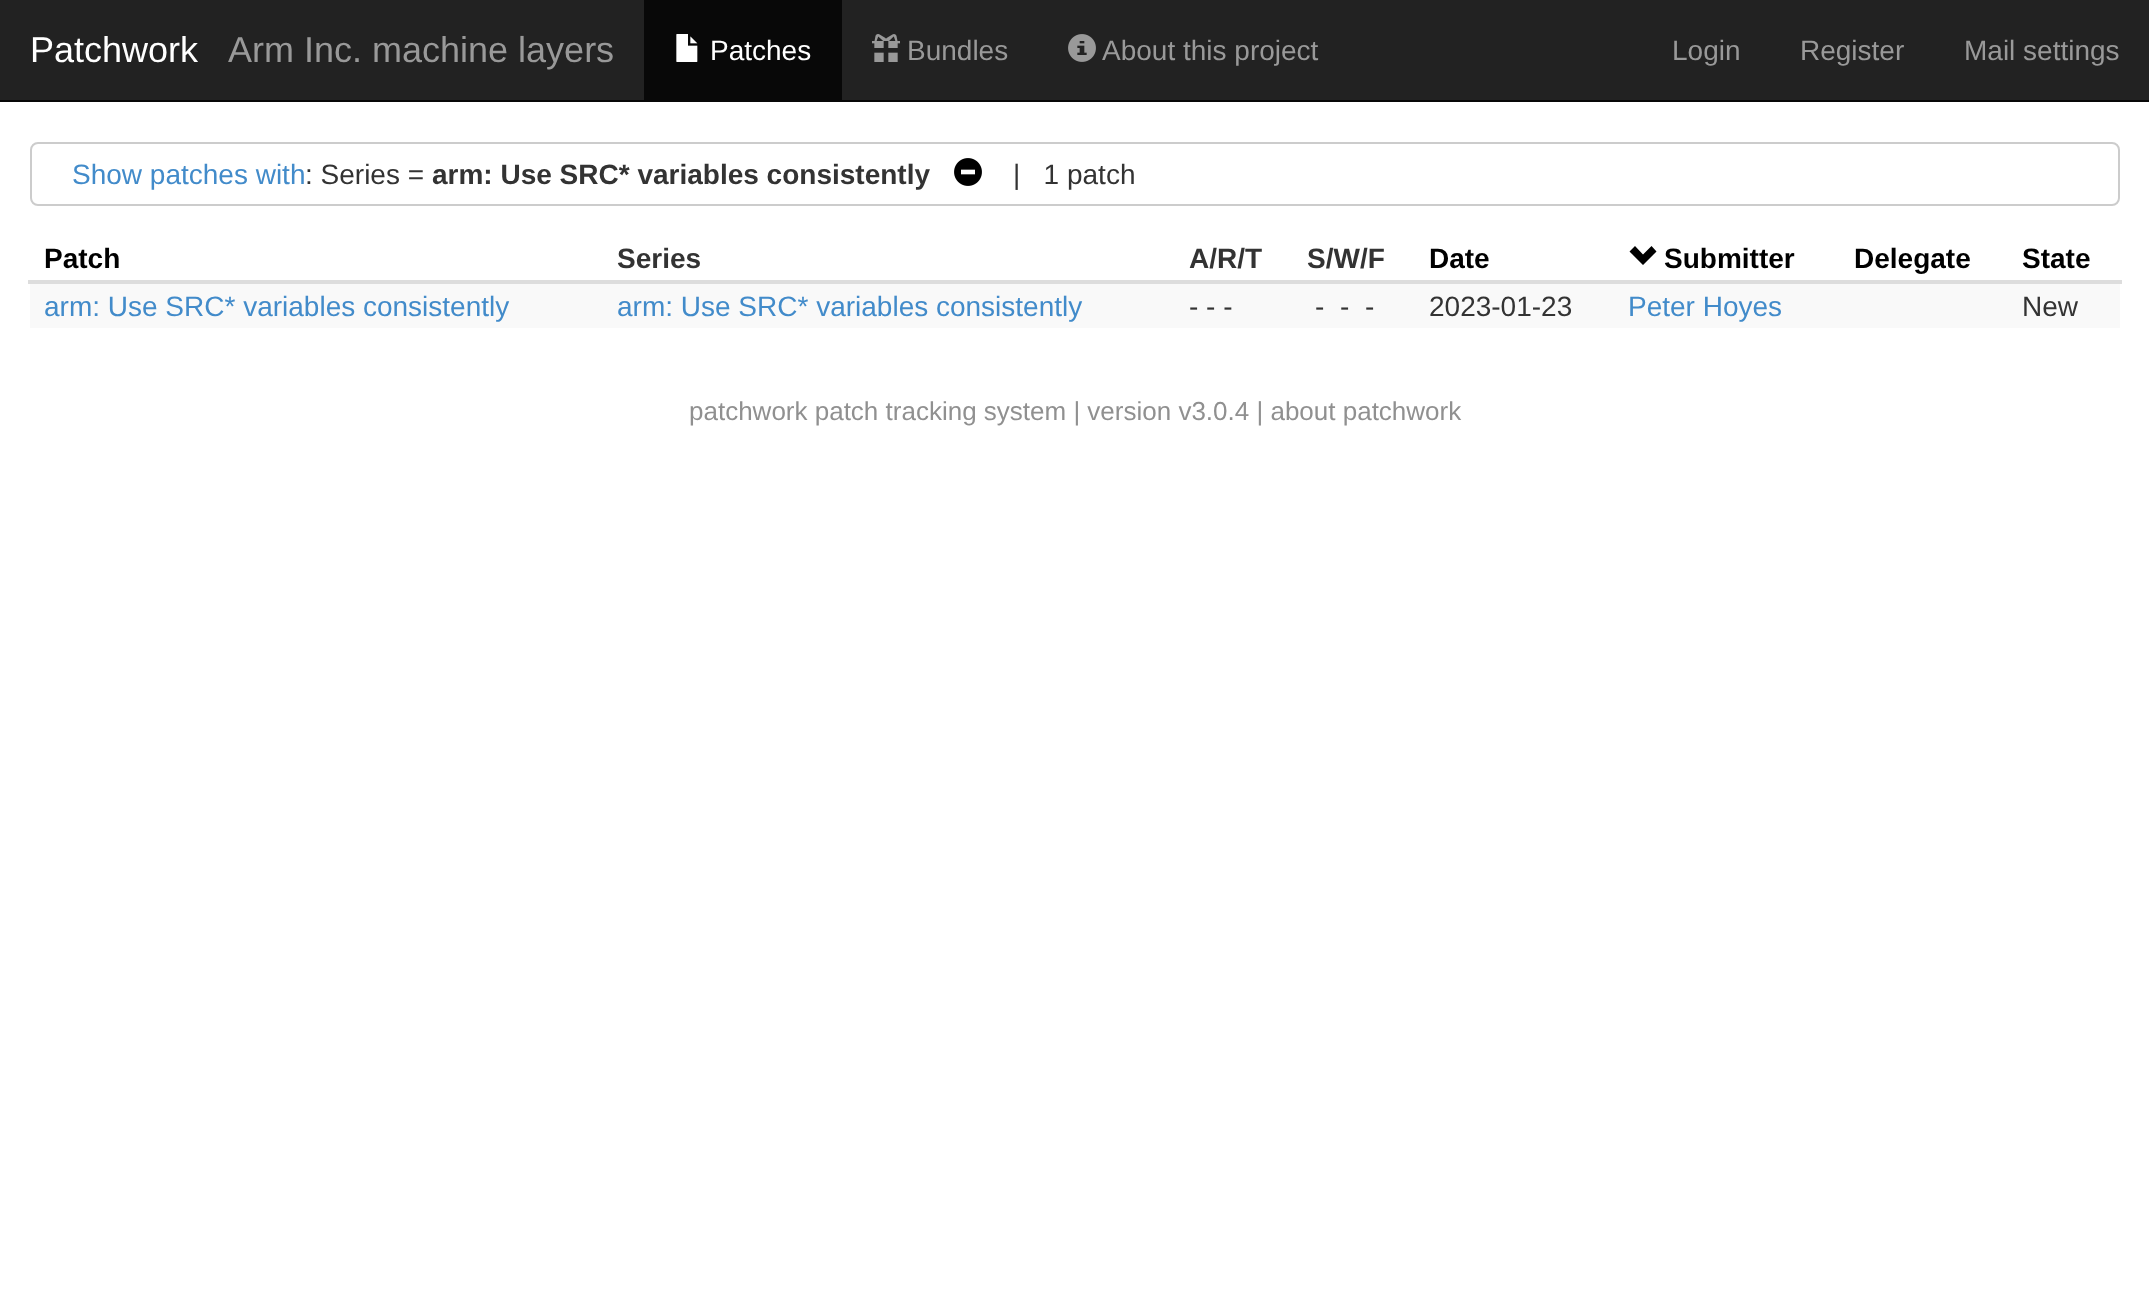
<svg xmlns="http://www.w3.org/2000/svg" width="2149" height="1302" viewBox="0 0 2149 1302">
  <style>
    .t1 { font: 36px Liberation Sans; fill: #fff; }
    .t2 { font: 36px Liberation Sans; fill: #999; }
    .t3 { font: 28px Liberation Sans; fill: #fff; }
    .t4 { font: 28px Liberation Sans; fill: #999; }
    .t5 { font: 28px Liberation Sans; fill: #428bca; }
    .t6 { font: 28px Liberation Sans; fill: #333; }
    .t7 { font: bold 28px Liberation Sans; fill: #333; }
    .t8 { font: bold 28px Liberation Sans; fill: #000; }
    .t9 { font: 26px Liberation Sans; fill: #909090; }
  </style>
  <rect width="100%" height="100%" fill="#fff"/>
  <rect x="0" y="0" width="2149" height="100" fill="#222"/>
  <rect x="0" y="100" width="2149" height="2" fill="#080808"/>
  <text x="30" y="62" class="t1">Patchwork</text>
  <text x="228" y="62" class="t2">Arm Inc. machine layers</text>
  <rect x="644" y="0" width="198" height="100" fill="#080808"/>
  <image x="676" y="34" width="22" height="28" href="images/1.png"/>
  <text x="710" y="60" class="t3">Patches</text>
  <image x="872" y="34" width="28" height="28" href="images/2.png"/>
  <text x="907" y="60" class="t4">Bundles</text>
  <image x="1068" y="34" width="28" height="28" href="images/3.png"/>
  <text x="1102" y="60" class="t4">About this project</text>
  <text x="1672" y="60" class="t4">Login</text>
  <text x="1800" y="60" class="t4">Register</text>
  <text x="1964" y="60" class="t4">Mail settings</text>
  <rect x="31" y="143" width="2088" height="62" rx="7" fill="none" stroke="#ccc" stroke-width="2"/>
  <text x="72" y="184" class="t5">Show patches with</text>
  <text x="305" y="184" class="t6">: Series =</text>
  <text x="432" y="184" class="t7">arm: Use SRC* variables consistently</text>
  <image x="954" y="158" width="28" height="28" href="images/4.png"/>
  <text x="1013" y="184" class="t6" xml:space="preserve">|   1 patch</text>
  <text x="44" y="268" class="t8">Patch</text>
  <text x="617" y="268" class="t7">Series</text>
  <text x="1189" y="268" class="t7">A/R/T</text>
  <text x="1307" y="268" class="t7">S/W/F</text>
  <text x="1429" y="268" class="t8">Date</text>
  <path d="M1629.5 251.5L1643 265L1656.5 251.5L1651.5 246L1643 254.5L1635 246Z" fill="#000"/>
  <text x="1664" y="268" class="t8">Submitter</text>
  <text x="1854" y="268" class="t8">Delegate</text>
  <rect x="28" y="280" width="2094" height="4" fill="#ddd"/>
  <text x="2022" y="268" class="t8">State</text>
  <rect x="30" y="284" width="2090" height="44" fill="#f9f9f9"/>
  <text x="44" y="316" class="t5">arm: Use SRC* variables consistently</text>
  <text x="617" y="316" class="t5">arm: Use SRC* variables consistently</text>
  <text x="1189" y="316" class="t6">- - -</text>
  <text x="1315" y="316" class="t6">-</text>
  <text x="1340" y="316" class="t6">-</text>
  <text x="1365" y="316" class="t6">-</text>
  <text x="1429" y="316" class="t6">2023-01-23</text>
  <text x="1628" y="316" class="t5">Peter Hoyes</text>
  <text x="2022" y="316" class="t6">New</text>
  <text x="689" y="420" class="t9">patchwork patch tracking system | version v3.0.4 | about patchwork</text>
</svg>
